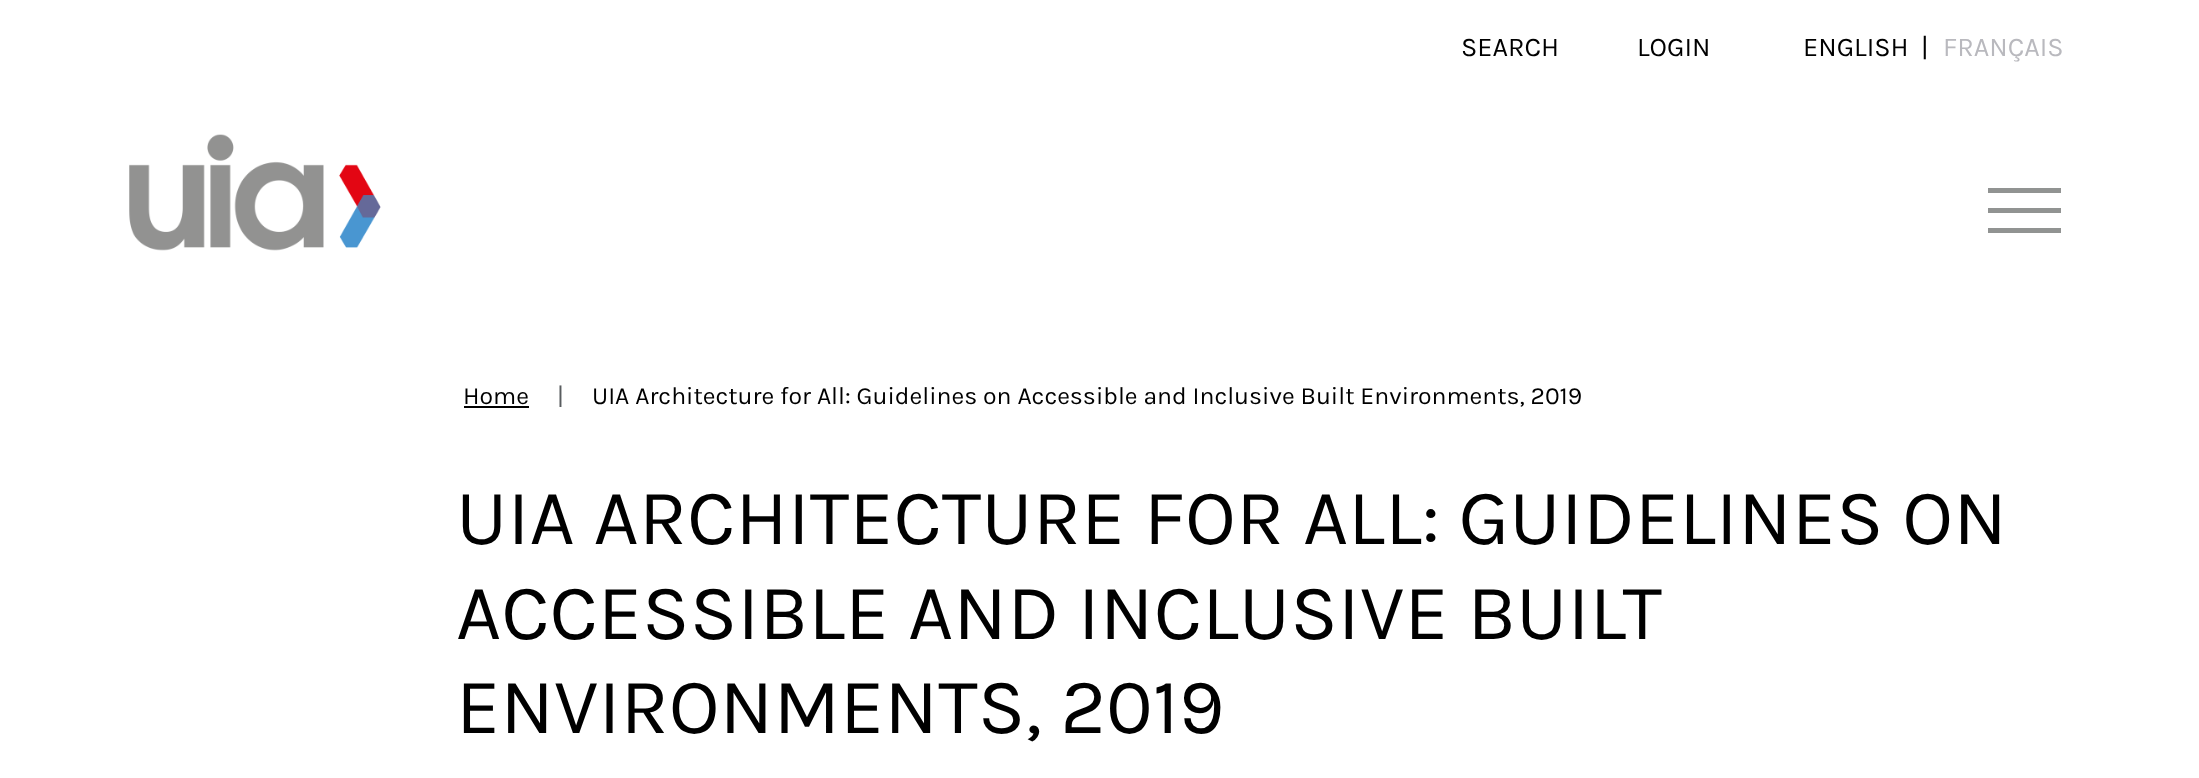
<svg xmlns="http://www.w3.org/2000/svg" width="2199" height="778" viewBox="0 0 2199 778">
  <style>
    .t1 { font: 27px Karla; fill: #000; }
    .t2 { font: 27px Karla; fill: #b9b9be; }
    .t3 { font: 24.75px Karla; fill: #000; }
    .t4 { font: 24.75px Karla; fill: #595c5f; }
    .t5 { font: 78.75px Karla; fill: #000; }
  </style>
  <rect width="100%" height="100%" fill="#fff"/>
  <text x="1461" y="56" class="t1">SEARCH</text>
  <text x="1637" y="56" class="t1">LOGIN</text>
  <text x="1803" y="56" class="t1">ENGLISH</text>
  <text x="1921" y="56" class="t1">|</text>
  <text x="1943" y="56" class="t2">FRANÇAIS</text>
  <image x="129" y="134" width="252" height="117" href="images/1.png"/>
  <rect x="1988" y="188" width="73" height="5" fill="#919392"/>
  <rect x="1988" y="208" width="73" height="5" fill="#919392"/>
  <rect x="1988" y="228" width="73" height="5" fill="#919392"/>
  <text x="463" y="404" class="t3">Home</text>
  <rect x="464" y="406" width="65" height="2" fill="#000"/>
  <text x="557" y="404" class="t4">|</text>
  <text x="592" y="404" class="t3">UIA Architecture for All: Guidelines on Accessible and Inclusive Built Environments, 2019</text>
  <text x="456" y="544" class="t5">UIA ARCHITECTURE FOR ALL: GUIDELINES ON</text>
  <text x="456" y="639" class="t5">ACCESSIBLE AND INCLUSIVE BUILT</text>
  <text x="456" y="733" class="t5">ENVIRONMENTS, 2019</text>
</svg>
